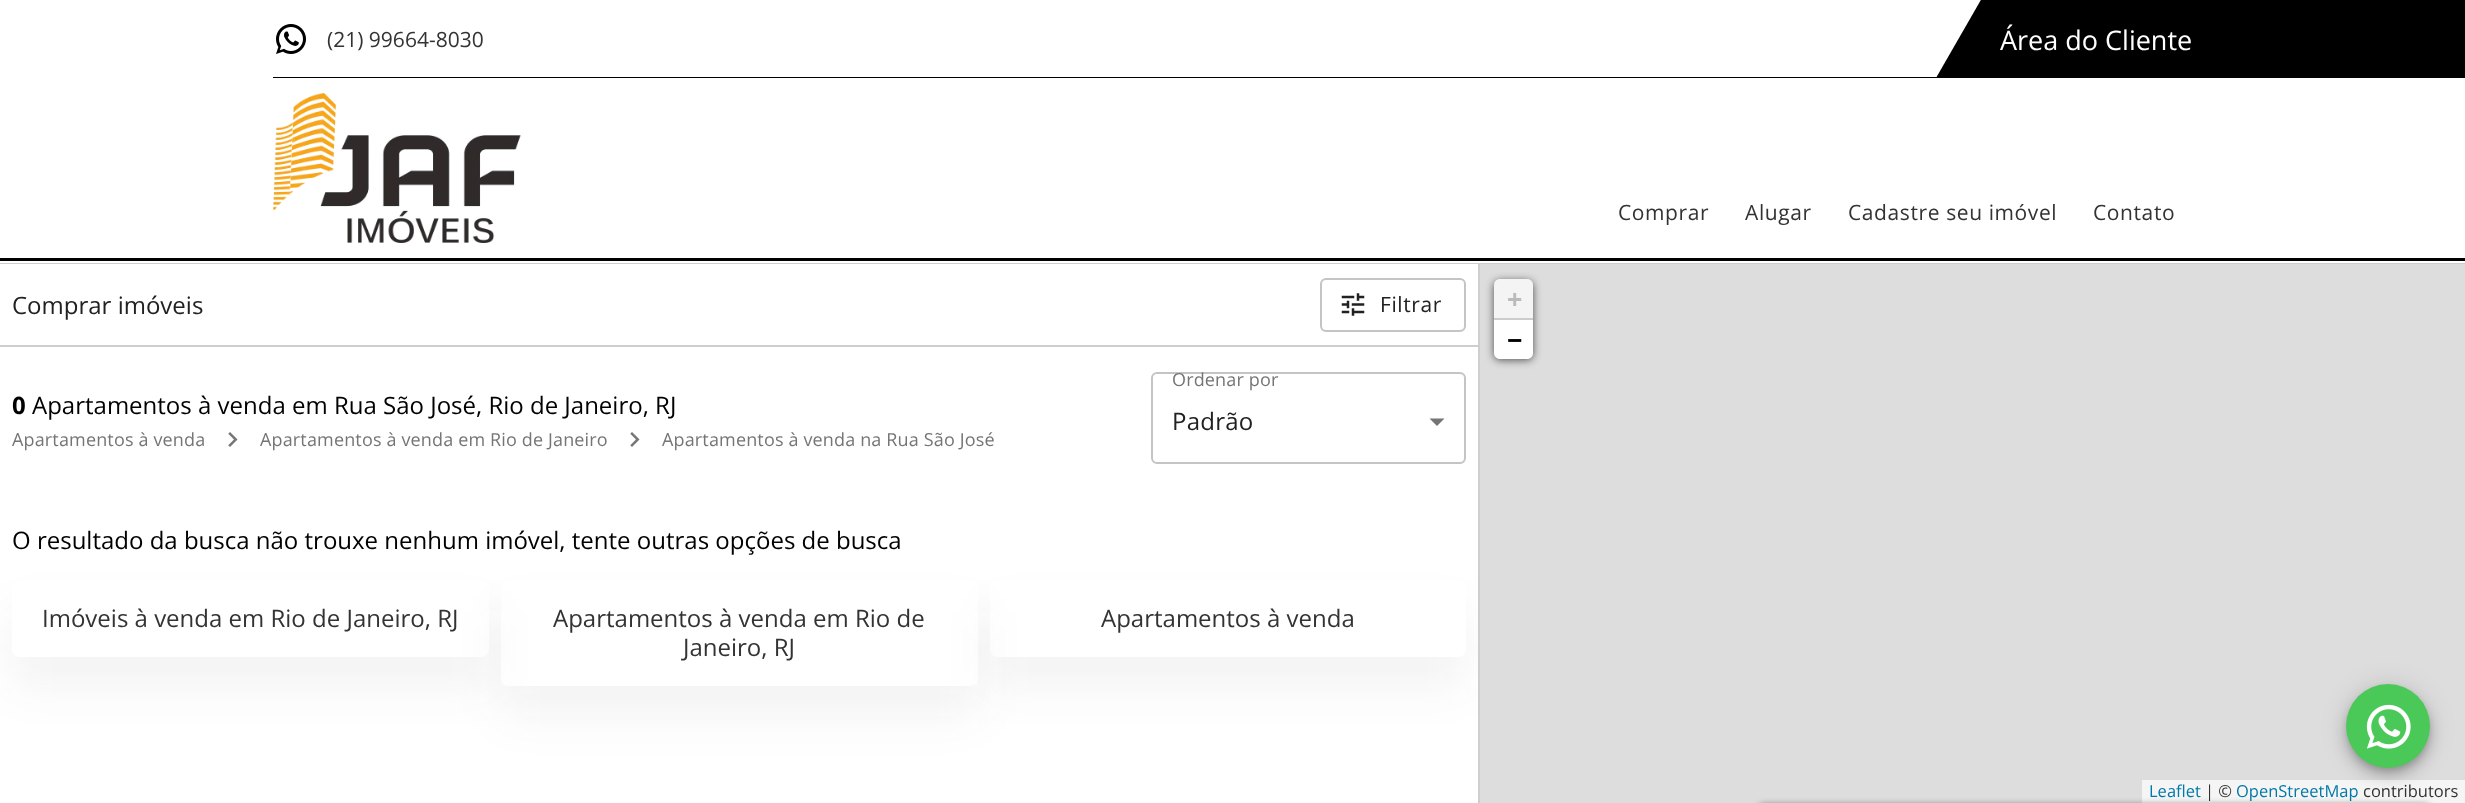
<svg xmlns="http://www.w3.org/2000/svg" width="2465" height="803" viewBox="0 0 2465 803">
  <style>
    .t1 { font: 21px Open Sans; fill: #333; }
    .t2 { font: 27px Open Sans; fill: #fff; }
    .t3 { font: 21px Open Sans; letter-spacing: 0.6px; fill: #333; }
    .t4 { font: 24px Open Sans; fill: #212121; }
    .t5 { font: 21px Open Sans; letter-spacing: 0.6px; fill: #212121; }
    .t6 { font: bold 24px Open Sans; fill: #000; }
    .t7 { font: 24px Open Sans; fill: #000; }
    .t8 { font: 18px Open Sans; letter-spacing: 0.15px; fill: #757575; }
    .t9 { font: 24px Open Sans; letter-spacing: 0.25px; fill: #212121; }
    .t10 { font: 24px Open Sans; fill: #333; }
    .t11 { font: bold 27px Open Sans; fill: #bbb; }
    .t12 { font: bold 27px Open Sans; fill: #000; }
    .t13 { font: 16.5px Open Sans; fill: #0078a8; }
    .t14 { font: 16.5px Open Sans; fill: #333; }
  </style>
  <defs>
    <clipPath id="clip1"><path d="M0 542H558V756H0ZM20 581H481C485.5 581 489 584.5 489 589V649C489 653.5 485.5 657 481 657H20C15.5 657 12 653.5 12 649V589C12 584.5 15.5 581 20 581Z" clip-rule="evenodd"/></clipPath>
    <clipPath id="clip2"><path d="M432 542H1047V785H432ZM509 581H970C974.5 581 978 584.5 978 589V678C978 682.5 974.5 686 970 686H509C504.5 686 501 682.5 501 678V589C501 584.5 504.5 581 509 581Z" clip-rule="evenodd"/></clipPath>
    <clipPath id="clip3"><rect x="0" y="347" width="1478" height="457"/></clipPath>
    <clipPath id="clip4"><path d="M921 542H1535V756H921ZM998 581H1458C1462.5 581 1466 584.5 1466 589V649C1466 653.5 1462.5 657 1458 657H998C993.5 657 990 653.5 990 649V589C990 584.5 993.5 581 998 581Z" clip-rule="evenodd"/></clipPath>
  </defs>
  <rect width="100%" height="100%" fill="#fff"/>
  <rect x="0" y="258" width="2465" height="3" fill="#000"/>
  <path d="M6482 78H1936L1982-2H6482Z" fill="#000"/>
  <rect x="273" y="77" width="1664" height="1" fill="#000"/>
  <image x="276" y="24" width="30" height="30" href="images/1.png"/>
  <text x="327" y="47" class="t1">(21) 99664-8030</text>
  <text x="2000" y="50" class="t2">Área do Cliente</text>
  <image x="273" y="93" width="248" height="150" href="images/2.png"/>
  <text x="1618" y="220" class="t3">Comprar</text>
  <text x="1745" y="220" class="t3">Alugar</text>
  <text x="1848" y="220" class="t3">Cadastre seu imóvel</text>
  <text x="2093" y="220" class="t3">Contato</text>
  <rect x="0" y="263" width="2465" height="1" fill="#cecece"/>
  <rect x="1478" y="264" width="2" height="539" fill="#cecece"/>
  <rect x="0" y="345" width="1478" height="2" fill="#cecece"/>
  <text x="12" y="314" class="t4">Comprar imóveis</text>
  <rect x="1321" y="279" width="144" height="52" rx="5" fill="none" stroke="#c4c4c4" stroke-width="2"/>
  <image x="1341" y="293" width="24" height="23" href="images/3.png"/>
  <text x="1380" y="312" class="t5">Filtrar</text>
  <text x="12" y="414" class="t6">0</text>
  <text x="32" y="414" class="t7">Apartamentos à venda em Rua São José, Rio de Janeiro, RJ</text>
  <text x="12" y="446" class="t8">Apartamentos à venda</text>
  <image x="228" y="432" width="10" height="15" href="images/4.png"/>
  <text x="260" y="446" class="t8">Apartamentos à venda em Rio de Janeiro</text>
  <image x="630" y="432" width="10" height="15" href="images/4.png"/>
  <text x="662" y="446" class="t8">Apartamentos à venda na Rua São José</text>
  <path d="M1429.5 418.5L1437 426L1444.5 418.5Z" fill="#757575"/>
  <rect x="1152" y="373" width="313" height="90" rx="5" fill="none" stroke="#c4c4c4" stroke-width="2"/>
  <text x="1172" y="386" class="t8">Ordenar por</text>
  <text x="1172" y="430" class="t9">Padrão</text>
  <text x="12" y="549" class="t7">O resultado da busca não trouxe nenhum imóvel, tente outras opções de busca</text>
  <g clip-path="url(#clip1)">
    <rect x="12" y="611" width="477" height="76" rx="8" fill="#3333330f" filter="blur(22.5px)"/>
  </g>
  <text x="42" y="627" class="t10">Imóveis à venda em Rio de Janeiro, RJ</text>
  <g clip-path="url(#clip2)">
    <rect x="501" y="611" width="477" height="105" rx="8" fill="#3333330f" filter="blur(22.5px)"/>
  </g>
  <text x="553" y="627" class="t10">Apartamentos à venda em Rio de</text>
  <text x="683" y="656" class="t10">Janeiro, RJ</text>
  <rect x="1480" y="264" width="985" height="539" fill="#ddd"/>
  <g clip-path="url(#clip3)">
    <g clip-path="url(#clip4)">
      <rect x="990" y="611" width="476" height="76" rx="8" fill="#3333330f" filter="blur(22.5px)"/>
    </g>
  </g>
  <text x="1101" y="627" class="t10">Apartamentos à venda</text>
  <rect x="1494" y="281" width="39" height="79" rx="6" fill="#000000a6" filter="blur(4px)"/>
  <path d="M1500 279H1527C1530.5 279 1533 281.5 1533 285V320H1494V285C1494 281.5 1496.5 279 1500 279Z" fill="#f4f4f4"/>
  <rect x="1494" y="318" width="39" height="2" fill="#ccc"/>
  <text x="1507" y="309" class="t11">+</text>
  <path d="M1494 320H1533V353C1533 356.5 1530.5 359 1527 359H1500C1496.5 359 1494 356.5 1494 353Z" fill="#fff"/>
  <text x="1507" y="350" class="t12">−</text>
  <rect x="2142" y="780" width="323" height="23" fill="#f5f5f5"/>
  <text x="2149" y="797" class="t13">Leaflet</text>
  <text x="2205" y="797" class="t14">| ©</text>
  <text x="2236" y="797" class="t13">OpenStreetMap</text>
  <text x="2363" y="797" class="t14">contributors</text>
  <rect x="2346" y="686" width="84" height="84" rx="42" fill="#0000001f" filter="blur(13.5px)"/>
  <rect x="2346" y="693" width="84" height="84" rx="42" fill="#00000024" filter="blur(7.5px)"/>
  <rect x="2348" y="690" width="81" height="81" rx="40.5" fill="#00000033" filter="blur(4px)"/>
  <circle cx="2388" cy="726" r="42" fill="#4ac959"/>
  <image x="2366" y="704" width="45" height="45" href="images/5.png"/>
  <rect x="1757" y="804" width="675" height="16" rx="8" fill="#00000066" filter="blur(3px)"/>
</svg>
